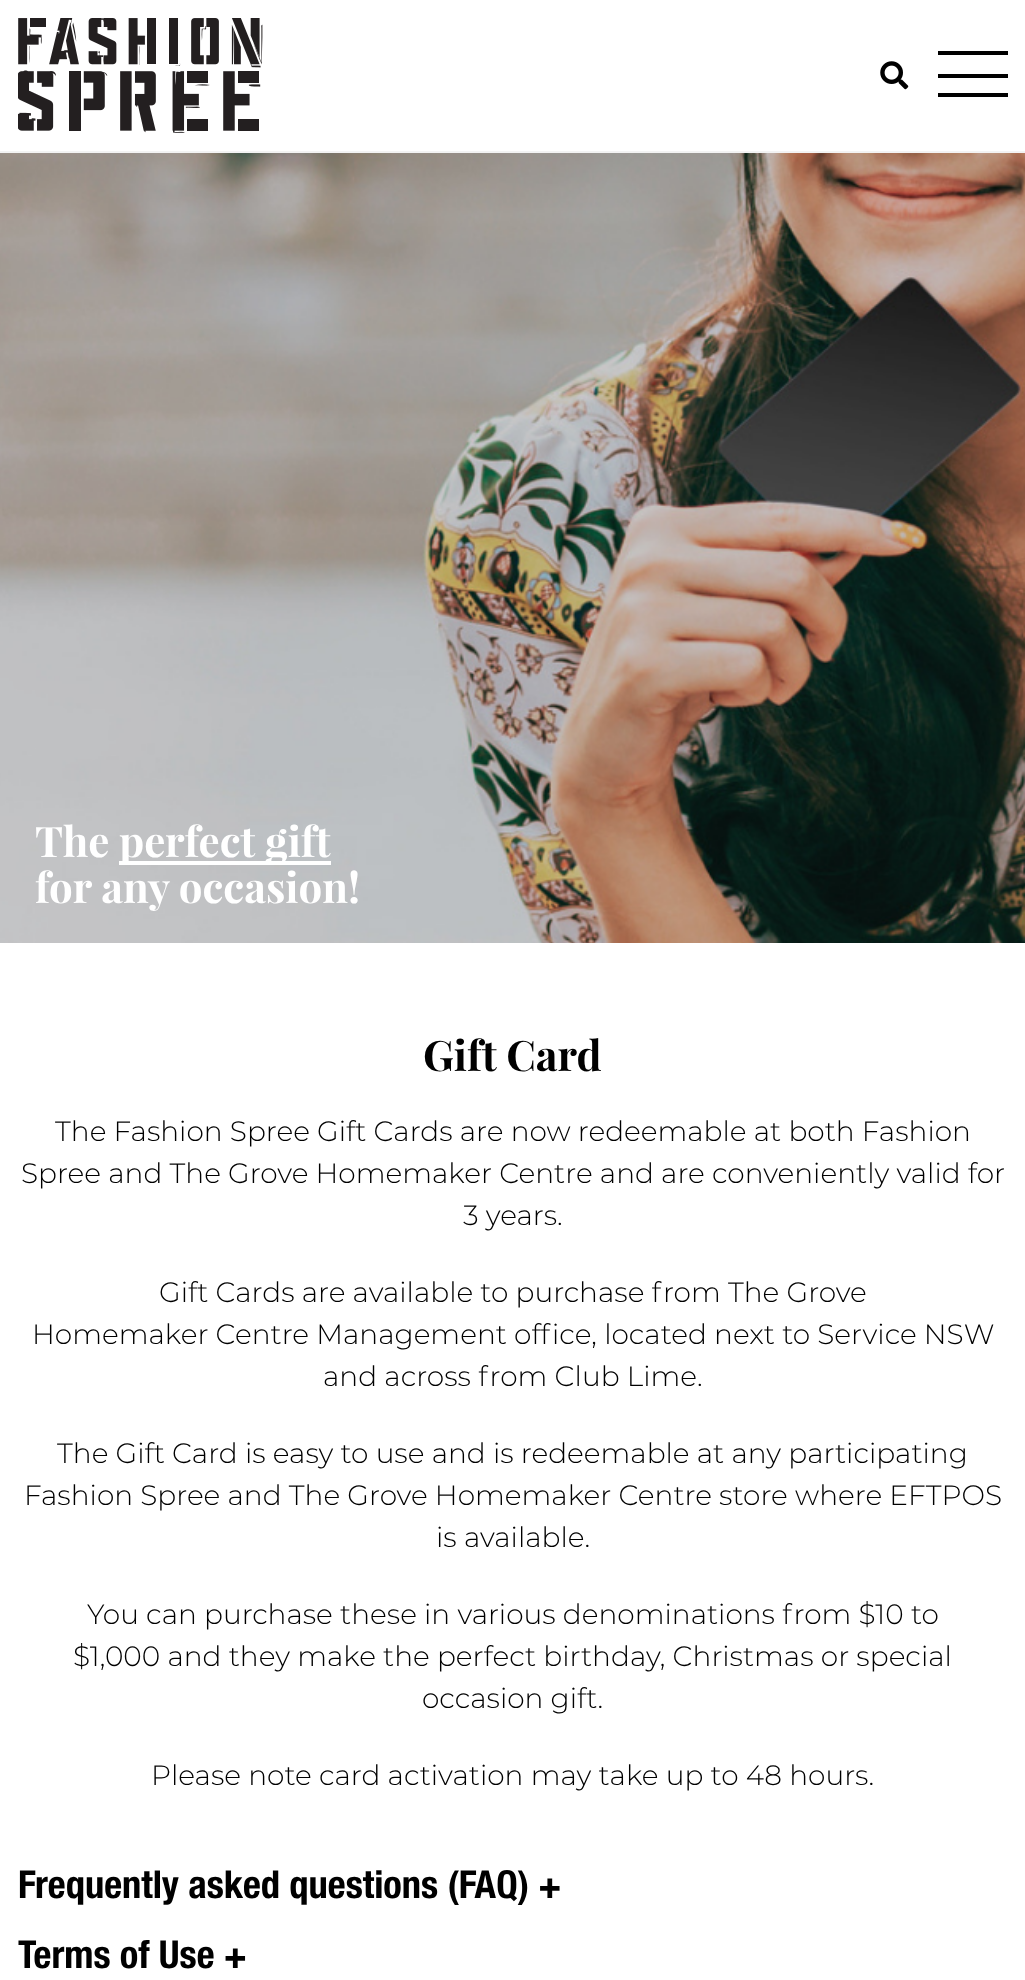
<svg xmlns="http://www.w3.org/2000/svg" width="1025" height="1980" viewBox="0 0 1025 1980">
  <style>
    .t1 { font: bold 42px Playfair Display; fill: #fff; }
    .t2 { font: bold 42px Playfair Display; fill: #000; }
    .t3 { font: 300 28px Montserrat; fill: #000; }
    .t4 { font: bold 38.5px Helvetica Neue; fill: #000; }
  </style>
  <rect width="100%" height="100%" fill="#fff"/>
  <rect x="0" y="151" width="1025" height="2" fill="#f3f3f3"/>
  <image x="18" y="18" width="245" height="115" href="images/1.png"/>
  <image x="880" y="61" width="29" height="29" href="images/2.png"/>
  <rect x="938" y="51" width="70" height="4" fill="#000"/>
  <rect x="938" y="74" width="70" height="4" fill="#000"/>
  <rect x="938" y="93" width="70" height="4" fill="#000"/>
  <image x="0" y="153" width="1025" height="790" href="images/3.png"/>
  <text x="35" y="857" class="t1">The</text>
  <rect x="119" y="861" width="212" height="4" fill="#fff"/>
  <text x="119" y="857" class="t1">perfect gift</text>
  <text x="35" y="903" class="t1">for any occasion!</text>
  <text x="423" y="1071" class="t2">Gift Card</text>
  <text x="55" y="1141" class="t3">The Fashion Spree Gift Cards are now redeemable at both Fashion</text>
  <text x="21" y="1183" class="t3">Spree and The Grove Homemaker Centre and are conveniently valid for</text>
  <text x="463" y="1225" class="t3">3 years.</text>
  <text x="159" y="1302" class="t3">Gift Cards are available to purchase from The Grove</text>
  <text x="32" y="1344" class="t3">Homemaker Centre Management office, located next to Service NSW</text>
  <text x="323" y="1386" class="t3">and across from Club Lime.</text>
  <text x="57" y="1463" class="t3">The Gift Card is easy to use and is redeemable at any participating</text>
  <text x="24" y="1505" class="t3">Fashion Spree and The Grove Homemaker Centre store where EFTPOS</text>
  <text x="436" y="1547" class="t3">is available.</text>
  <text x="87" y="1624" class="t3">You can purchase these in various denominations from $10 to</text>
  <text x="73" y="1666" class="t3">$1,000 and they make the perfect birthday, Christmas or special</text>
  <text x="422" y="1708" class="t3">occasion gift.</text>
  <text x="151" y="1785" class="t3">Please note card activation may take up to 48 hours.</text>
  <text x="18" y="1898" class="t4">Frequently asked questions (FAQ) +</text>
  <text x="18" y="1968" class="t4">Terms of Use +</text>
</svg>
